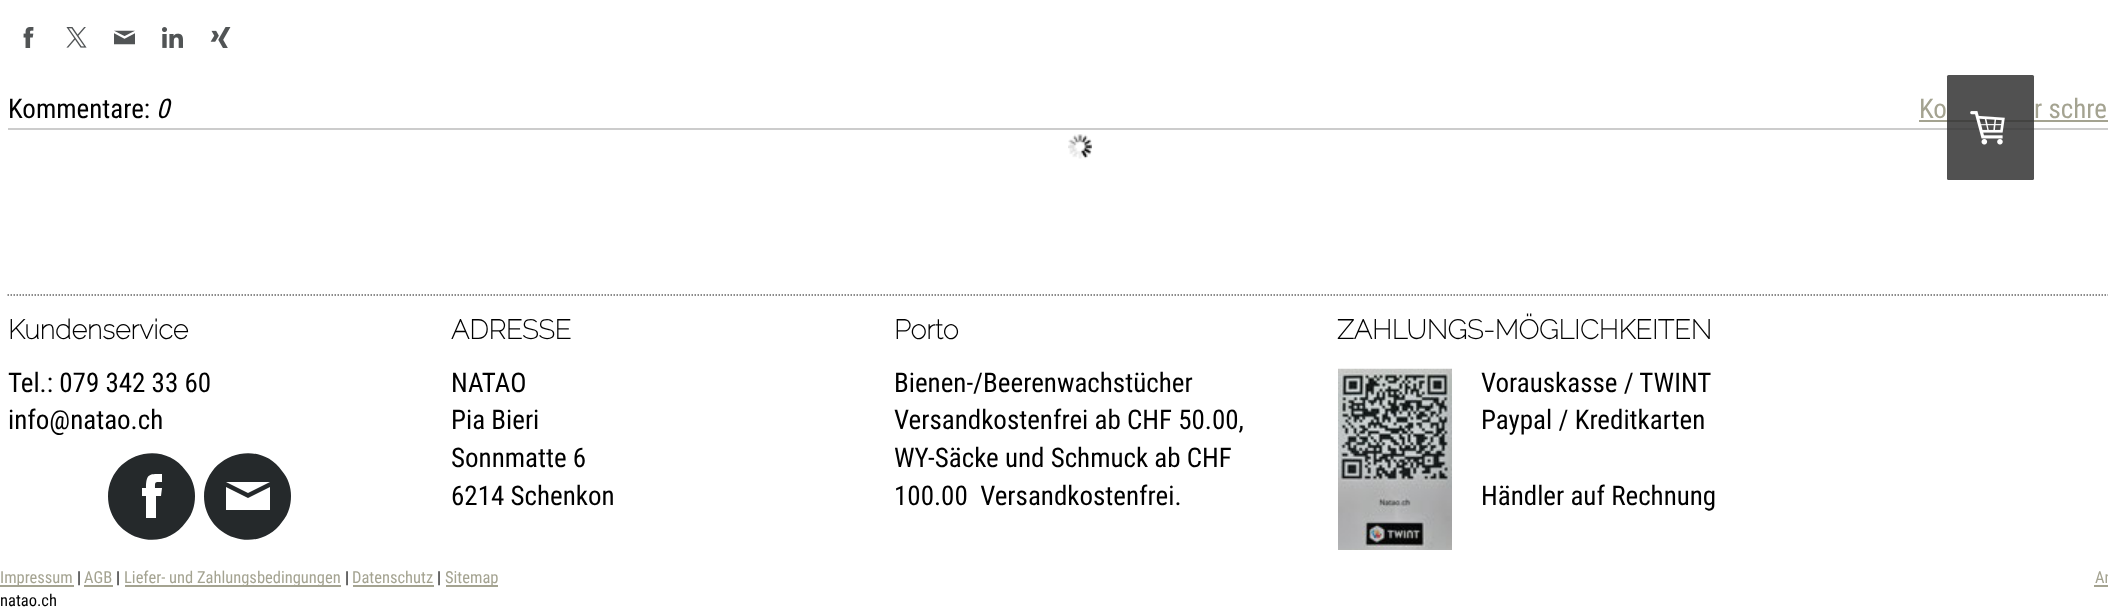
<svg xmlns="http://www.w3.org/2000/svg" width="2108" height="611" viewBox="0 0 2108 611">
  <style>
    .t1 { font: 27px Roboto Condensed; fill: #000; }
    .t2 { font: italic 27px Roboto Condensed; fill: #000; }
    .t3 { font: 27px Roboto Condensed; fill: #a4a391; }
    .t4 { font: bold 27px Raleway; fill: #000; }
    .t5 { font: 16.5px Roboto Condensed; fill: #a4a391; }
    .t6 { font: 16.5px Roboto Condensed; fill: #000; }
  </style>
  <rect width="100%" height="100%" fill="#fff"/>
  <image x="23" y="27" width="11" height="21" href="images/1.png"/>
  <image x="66" y="27" width="21" height="21" href="images/2.png"/>
  <image x="114" y="30" width="21" height="15" href="images/3.png"/>
  <image x="162" y="27" width="21" height="21" href="images/4.png"/>
  <image x="210" y="27" width="21" height="21" href="images/5.png"/>
  <text x="8" y="118" class="t1">Kommentare:</text>
  <text x="156" y="118" class="t2">0</text>
  <text x="1919" y="118" class="t3">Ko</text>
  <rect x="1919" y="120" width="189" height="2" fill="#a4a391"/>
  <text x="2034" y="118" class="t3">r schre</text>
  <image x="1068" y="134" width="24" height="25" href="images/6.png"/>
  <rect x="8" y="128" width="2100" height="2" fill="#ccc"/>
  <rect x="1947" y="75" width="87" height="105" rx="1.5" fill="#333333d9"/>
  <image x="1970" y="111" width="35" height="34" href="images/7.png"/>
  <path d="M7.5 295H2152.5" fill="none" stroke="#666" stroke-width="1.5" stroke-dasharray="1.5 1.5"/>
  <text x="8" y="339" class="t4">Kundenservice</text>
  <text x="8" y="392" class="t1">Tel.: 079 342 33 60</text>
  <text x="8" y="429" class="t1">info@natao.ch</text>
  <path d="M108 496C108 538 162 556 186 522C192 515 195 506 195 496C195 487 192 478 186 471C162 437 108 455 108 497Z" fill="#25292b"/>
  <path d="M162 474C150 474 146 473 146 488H142V496H146V518H156V496H161L162 488H155C155 481 155 482 162 482Z" fill="#fff"/>
  <path d="M204 496C204 538 258 556 282 522C288 515 291 506 291 496C291 487 288 478 282 471C258 437 204 455 204 497Z" fill="#25292b"/>
  <path d="M270 510H226V487L248 498L270 487ZM270 482H226L248 493Z" fill="#fff"/>
  <text x="451" y="339" class="t4">ADRESSE</text>
  <text x="451" y="392" class="t1">NATAO</text>
  <text x="451" y="429" class="t1">Pia Bieri</text>
  <text x="451" y="467" class="t1">Sonnmatte 6</text>
  <text x="451" y="505" class="t1">6214 Schenkon</text>
  <text x="894" y="339" class="t4">Porto</text>
  <text x="894" y="392" class="t1">Bienen-/Beerenwachstücher</text>
  <text x="894" y="429" class="t1">Versandkostenfrei ab CHF 50.00,</text>
  <text x="894" y="467" class="t1">WY-Säcke und Schmuck ab CHF</text>
  <text x="894" y="505" class="t1" xml:space="preserve">100.00  Versandkostenfrei.</text>
  <text x="1337" y="339" class="t4">ZAHLUNGS-MÖGLICHKEITEN</text>
  <image x="1338" y="368" width="114" height="182" href="images/8.png"/>
  <text x="1481" y="392" class="t1">Vorauskasse / TWINT</text>
  <text x="1481" y="429" class="t1">Paypal / Kreditkarten</text>
  <text x="1481" y="505" class="t1">Händler auf Rechnung</text>
  <rect x="0" y="585" width="74" height="2" fill="#a4a391"/>
  <text x="0" y="583" class="t5">Impressum</text>
  <text x="77" y="583" class="t6">|</text>
  <text x="84" y="583" class="t5">AGB</text>
  <rect x="84" y="585" width="29" height="2" fill="#a4a391"/>
  <text x="116" y="583" class="t6">|</text>
  <rect x="125" y="585" width="216" height="2" fill="#a4a391"/>
  <text x="124" y="583" class="t5">Liefer- und Zahlungsbedingungen</text>
  <text x="345" y="583" class="t6">|</text>
  <text x="352" y="583" class="t5">Datenschutz</text>
  <rect x="353" y="585" width="81" height="2" fill="#a4a391"/>
  <text x="437" y="583" class="t6">|</text>
  <rect x="446" y="585" width="52" height="2" fill="#a4a391"/>
  <text x="445" y="583" class="t5">Sitemap</text>
  <text x="0" y="606" class="t6">natao.ch</text>
  <text x="2095" y="583" class="t5">An</text>
  <rect x="2094" y="585" width="14" height="2" fill="#a4a391"/>
</svg>
